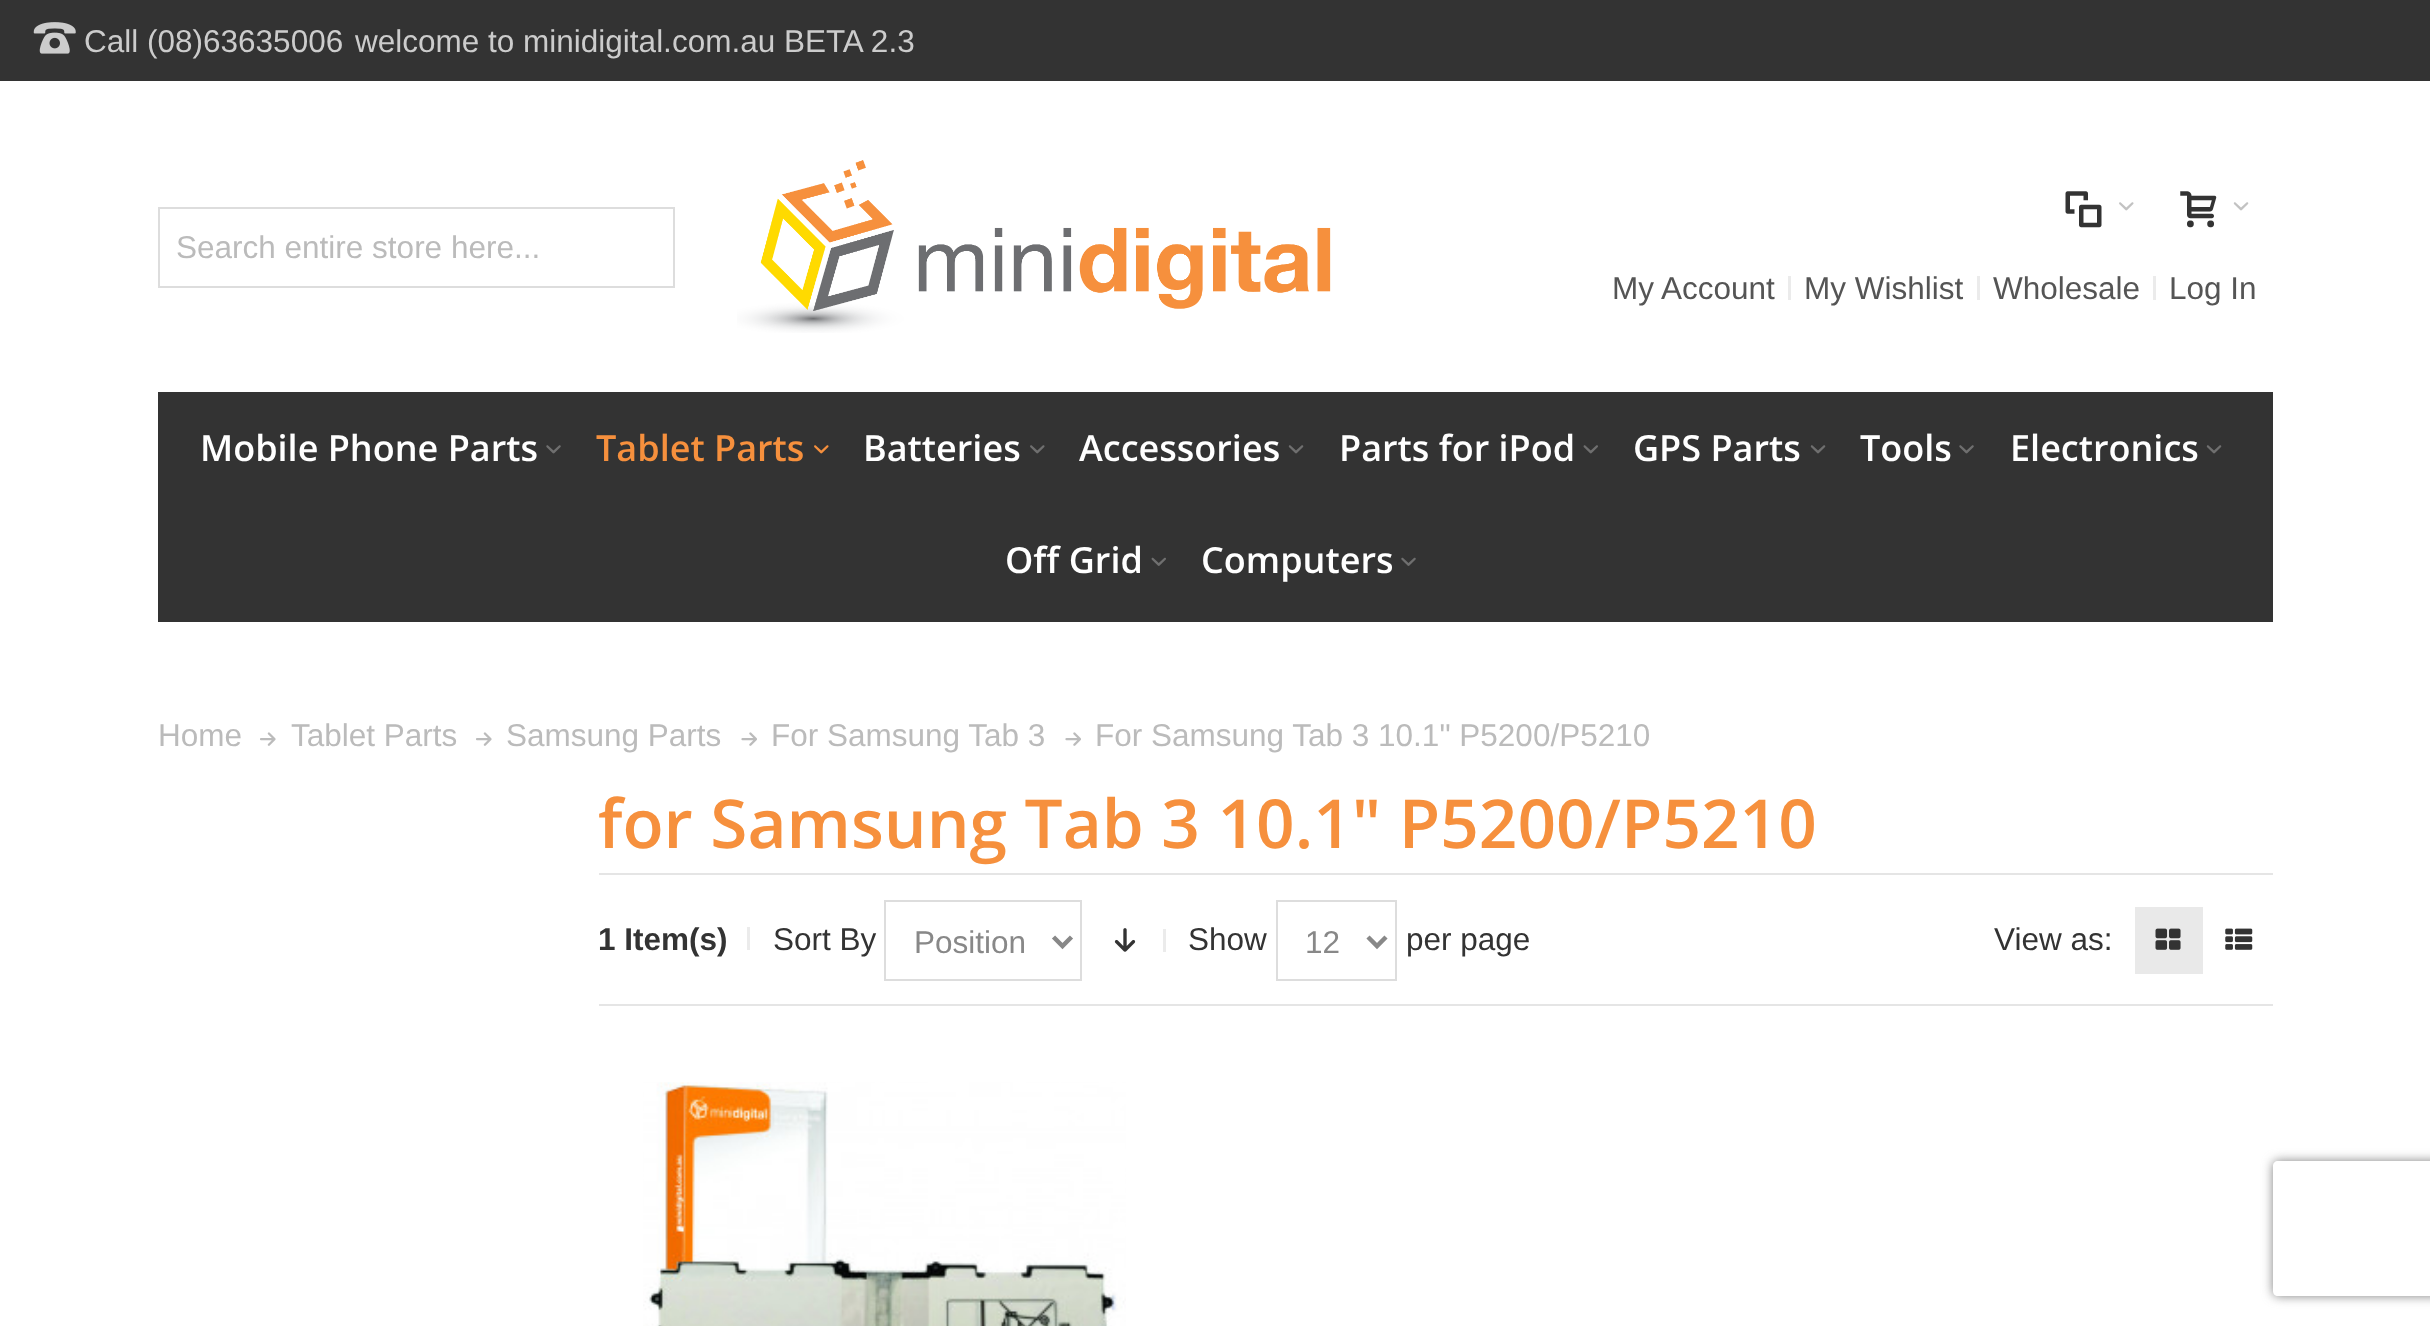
<svg xmlns="http://www.w3.org/2000/svg" width="2430" height="1326" viewBox="0 0 2430 1326">
  <style>
    .t1 { font: 31.5px Liberation Sans; fill: #ccc; }
    .t2 { font: 31.5px Liberation Sans; fill: #bbb; }
    .t3 { font: 31.5px Liberation Sans; fill: #555; }
    .t4 { font: 600 36px Open Sans; fill: #fff; }
    .t5 { font: 600 36px Open Sans; fill: #f6903d; }
    .t6 { font: 600 67.5px Open Sans; fill: #f6903d; }
    .t7 { font: bold 31.5px Liberation Sans; fill: #333; }
    .t8 { font: 31.5px Liberation Sans; fill: #333; }
    .t9 { font: 31.5px Liberation Sans; fill: #888; }
  </style>
  <defs>
    <clipPath id="clip1"><path d="M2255 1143H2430V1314H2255ZM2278 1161H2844C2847 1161 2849 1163 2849 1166V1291C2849 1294 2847 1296 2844 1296H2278C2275 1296 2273 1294 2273 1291V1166C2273 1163 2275 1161 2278 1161Z" clip-rule="evenodd"/></clipPath>
  </defs>
  <rect width="100%" height="100%" fill="#fff"/>
  <rect x="0" y="0" width="2430" height="81" fill="#333"/>
  <image x="33" y="22" width="43" height="32" href="images/1.png"/>
  <text x="84" y="52" class="t1">Call (08)63635006</text>
  <text x="355" y="52" class="t1">welcome to minidigital.com.au BETA 2.3</text>
  <rect x="159" y="208" width="515" height="79" fill="none" stroke="#ddd" stroke-width="2"/>
  <text x="176" y="258" class="t2">Search entire store here...</text>
  <image x="737" y="160" width="594" height="173" href="images/2.png"/>
  <image x="2065" y="191" width="37" height="37" href="images/3.png"/>
  <image x="2119" y="202" width="15" height="9" href="images/4.png"/>
  <image x="2180" y="191" width="37" height="37" href="images/5.png"/>
  <image x="2233" y="202" width="16" height="9" href="images/6.png"/>
  <text x="1612" y="299" class="t3">My Account</text>
  <rect x="1788" y="276" width="3" height="24" fill="#ebebeb"/>
  <text x="1804" y="299" class="t3">My Wishlist</text>
  <rect x="1977" y="276" width="3" height="24" fill="#ebebeb"/>
  <text x="1993" y="299" class="t3">Wholesale</text>
  <rect x="2153" y="276" width="3" height="24" fill="#ebebeb"/>
  <text x="2169" y="299" class="t3">Log In</text>
  <rect x="158" y="392" width="2115" height="230" fill="#333"/>
  <text x="200" y="461" class="t4">Mobile Phone Parts</text>
  <image x="546" y="445" width="15" height="9" href="images/7.png"/>
  <text x="596" y="461" class="t5">Tablet Parts</text>
  <image x="814" y="445" width="15" height="9" href="images/8.png"/>
  <text x="863" y="461" class="t4">Batteries</text>
  <image x="1030" y="445" width="15" height="9" href="images/9.png"/>
  <text x="1079" y="461" class="t4">Accessories</text>
  <image x="1288" y="445" width="16" height="9" href="images/10.png"/>
  <text x="1339" y="461" class="t4">Parts for iPod</text>
  <image x="1583" y="445" width="15" height="9" href="images/11.png"/>
  <text x="1633" y="461" class="t4">GPS Parts</text>
  <image x="1810" y="445" width="16" height="9" href="images/10.png"/>
  <text x="1860" y="461" class="t4">Tools</text>
  <image x="1959" y="445" width="15" height="9" href="images/7.png"/>
  <text x="2010" y="461" class="t4">Electronics</text>
  <image x="2206" y="445" width="16" height="9" href="images/10.png"/>
  <text x="1005" y="573" class="t4">Off Grid</text>
  <image x="1151" y="557" width="15" height="9" href="images/12.png"/>
  <text x="1201" y="573" class="t4">Computers</text>
  <image x="1401" y="557" width="15" height="9" href="images/13.png"/>
  <text x="158" y="746" class="t2">Home</text>
  <image x="260" y="732" width="16" height="14" href="images/14.png"/>
  <text x="291" y="746" class="t2">Tablet Parts</text>
  <image x="476" y="732" width="16" height="14" href="images/14.png"/>
  <text x="506" y="746" class="t2">Samsung Parts</text>
  <image x="741" y="732" width="16" height="14" href="images/15.png"/>
  <text x="771" y="746" class="t2">For Samsung Tab 3</text>
  <image x="1065" y="732" width="16" height="14" href="images/15.png"/>
  <text x="1095" y="746" class="t2">For Samsung Tab 3 10.1" P5200/P5210</text>
  <rect x="599" y="873" width="1674" height="2" fill="#e5e5e5"/>
  <text x="598" y="848" class="t6">for Samsung Tab 3 10.1" P5200/P5210</text>
  <rect x="599" y="1004" width="1674" height="2" fill="#e5e5e5"/>
  <rect x="747" y="927" width="3" height="23" fill="#ebebeb"/>
  <text x="598" y="950" class="t7">1 Item(s)</text>
  <rect x="1163" y="929" width="3" height="23" fill="#ebebeb"/>
  <text x="773" y="950" class="t8">Sort By</text>
  <rect x="885" y="901" width="196" height="79" fill="none" stroke="#ddd" stroke-width="2"/>
  <path d="M1053.5 937L1062.5 946L1071.5 937" fill="none" stroke="#888" stroke-width="4.5"/>
  <text x="914" y="953" class="t9">Position</text>
  <image x="1114" y="928" width="22" height="24" href="images/16.png"/>
  <text x="1188" y="950" class="t8">Show</text>
  <rect x="1277" y="901" width="119" height="79" fill="none" stroke="#ddd" stroke-width="2"/>
  <path d="M1368 937L1377 946L1386 937" fill="none" stroke="#888" stroke-width="4.5"/>
  <text x="1305" y="953" class="t9">12</text>
  <text x="1406" y="950" class="t8">per page</text>
  <text x="1994" y="950" class="t8">View as:</text>
  <rect x="2135" y="907" width="68" height="67" fill="#e9e9e9"/>
  <image x="2155" y="928" width="26" height="22" href="images/17.png"/>
  <image x="2225" y="928" width="28" height="22" href="images/18.png"/>
  <image x="643" y="1082" width="483" height="244" href="images/19.png"/>
  <g clip-path="url(#clip1)">
    <rect x="2273" y="1161" width="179" height="135" rx="5" fill="#808080" filter="blur(5.5px)"/>
  </g>
</svg>
